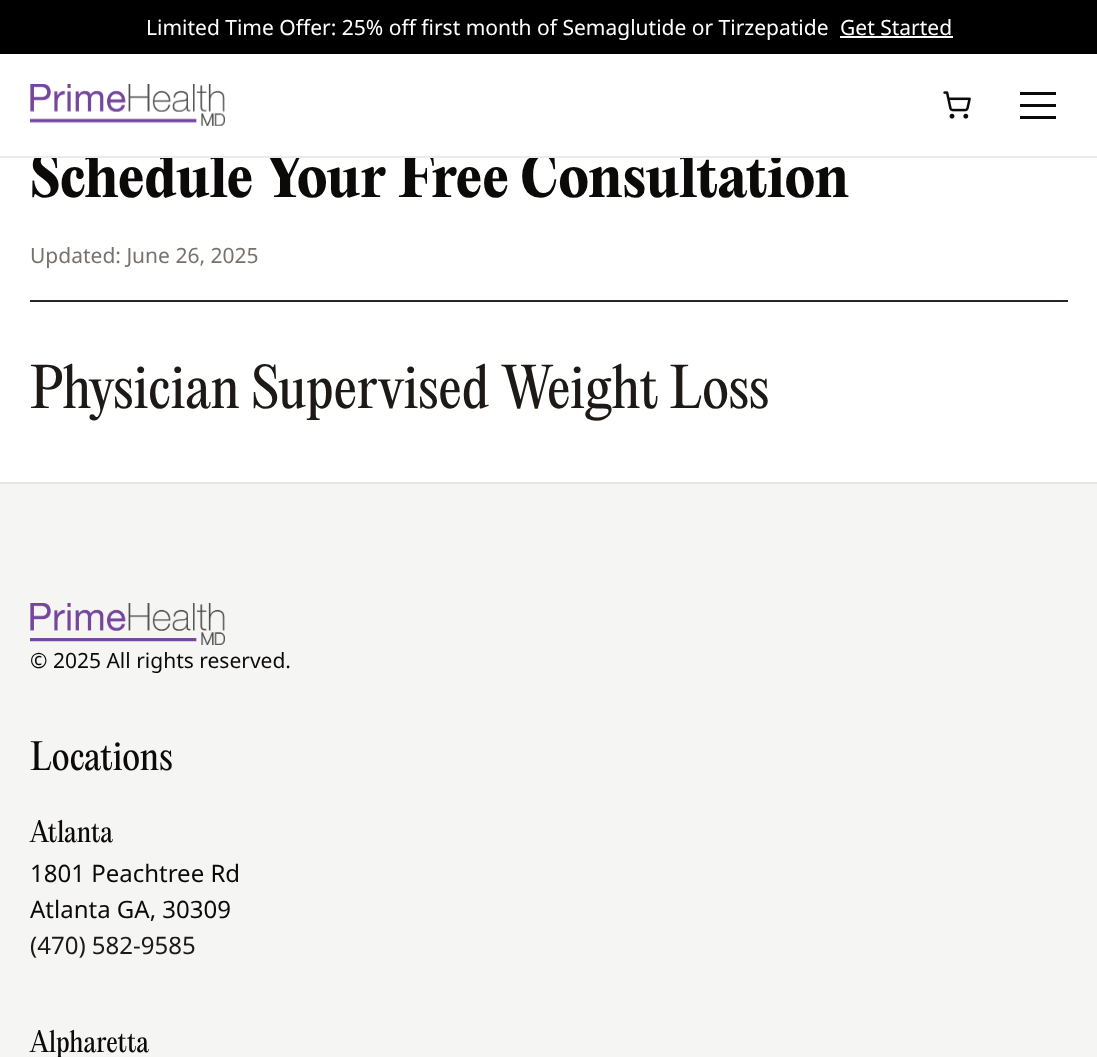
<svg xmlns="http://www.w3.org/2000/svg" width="1097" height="1057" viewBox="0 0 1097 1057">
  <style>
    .t1 { font: bold 54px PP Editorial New; fill: #0c0a09; }
    .t2 { font: 21px Noto Sans; fill: #fff; }
    .t3 { font: 21px Noto Sans; fill: #78716c; }
    .t4 { font: 54px PP Editorial New; fill: #1c1917; }
    .t5 { font: 21px Noto Sans; fill: #0c0a09; }
    .t6 { font: 36px PP Editorial New; fill: #0c0a09; }
    .t7 { font: 27px PP Editorial New; fill: #0c0a09; }
    .t8 { font: 24px Noto Sans; fill: #0c0a09; }
    .t9 { font: 24px Noto Sans; fill: #1c1917; }
  </style>
  <rect width="100%" height="100%" fill="#fff"/>
  <text x="30" y="197" class="t1">Schedule Your Free Consultation</text>
  <rect x="36" y="152" width="744" height="4" fill="#fff"/>
  <rect x="0" y="156" width="1097" height="2" fill="#ebebe9"/>
  <rect x="0" y="0" width="1097" height="54" fill="#000"/>
  <text x="146" y="35" class="t2">Limited Time Offer: 25% off first month of Semaglutide or Tirzepatide</text>
  <text x="840" y="35" class="t2">Get Started</text>
  <rect x="840" y="36" width="113" height="2" fill="#fff"/>
  <image x="30" y="84" width="195" height="42" href="images/1.png"/>
  <image x="943" y="91" width="28" height="28" href="images/2.png"/>
  <rect x="1020" y="92" width="36" height="3" fill="#0c0a09"/>
  <rect x="1020" y="104" width="36" height="3" fill="#0c0a09"/>
  <rect x="1020" y="116" width="36" height="3" fill="#0c0a09"/>
  <rect x="30" y="300" width="1038" height="2" fill="#292524"/>
  <text x="30" y="263" class="t3">Updated: June 26, 2025</text>
  <text x="30" y="408" class="t4">Physician Supervised Weight Loss</text>
  <rect x="0" y="484" width="1097" height="573" fill="#f5f5f4"/>
  <rect x="0" y="482" width="1097" height="2" fill="#e7e5e4"/>
  <image x="30" y="603" width="195" height="42" href="images/3.png"/>
  <text x="30" y="668" class="t5">© 2025 All rights reserved.</text>
  <text x="30" y="770" class="t6">Locations</text>
  <text x="30" y="842" class="t7">Atlanta</text>
  <text x="30" y="882" class="t8">1801 Peachtree Rd</text>
  <text x="30" y="918" class="t8">Atlanta GA, 30309</text>
  <text x="30" y="954" class="t9">(470) 582-9585</text>
  <text x="30" y="1052" class="t7">Alpharetta</text>
</svg>
